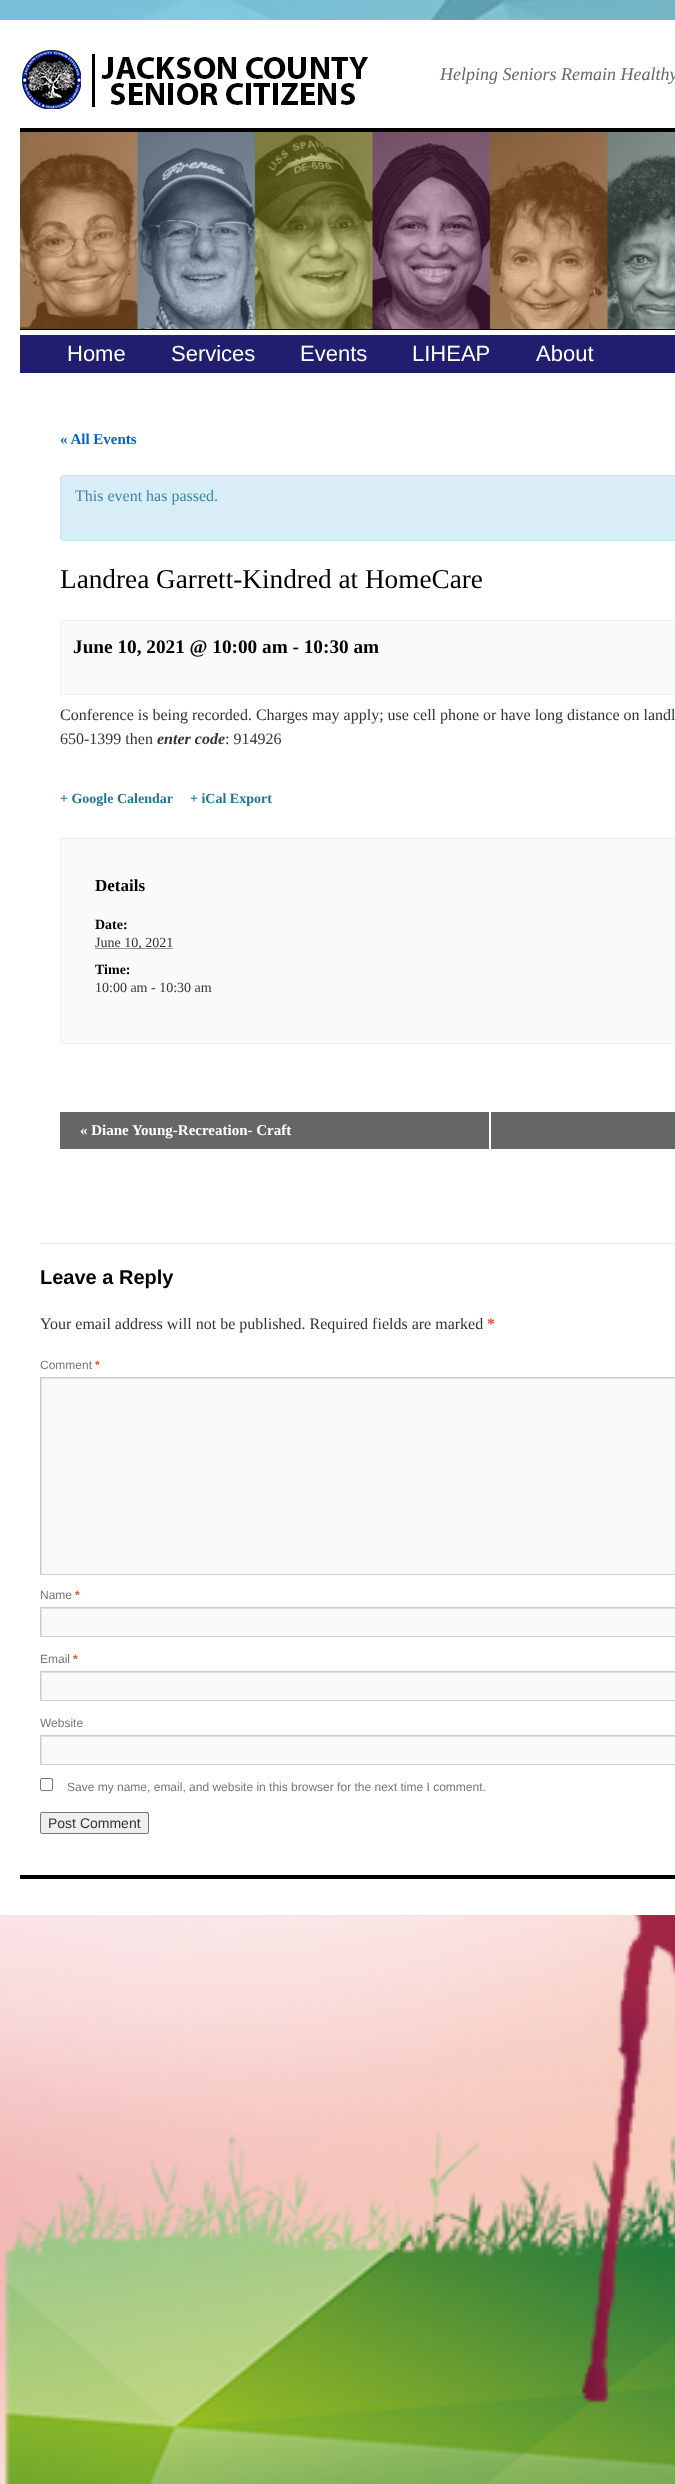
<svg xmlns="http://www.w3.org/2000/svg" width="675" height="2484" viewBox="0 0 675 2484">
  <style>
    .t1 { font: italic 18px Liberation Serif; fill: #666; }
    .t2 { font: 22px Liberation Sans; fill: #fff; }
    .t3 { font: bold 15px Liberation Serif; fill: #06c; }
    .t4 { font: 16px Liberation Serif; fill: #3a87ad; }
    .t5 { font: 27.25px Liberation Serif; fill: #000; }
    .t6 { font: bold 19.25px Liberation Serif; fill: #000; }
    .t7 { font: 16px Liberation Serif; fill: #333; }
    .t8 { font: italic bold 16px Liberation Serif; fill: #333; }
    .t9 { font: bold 14px Liberation Serif; fill: #21759b; }
    .t10 { font: bold 17px Liberation Serif; fill: #000; }
    .t11 { font: bold 14px Liberation Serif; fill: #000; }
    .t12 { font: 14px Liberation Serif; fill: #333; }
    .t13 { font: bold 15px Liberation Serif; fill: #fff; }
    .t14 { font: bold 20px Liberation Sans; fill: #000; }
    .t15 { font: bold 16px Liberation Serif; fill: #ff4b33; }
    .t16 { font: 12px Liberation Sans; fill: #777; }
    .t17 { font: bold 12px Liberation Sans; fill: #ff4b33; }
    .t18 { font: 14px Liberation Sans; fill: #333; }
  </style>
  <defs>
    <clipPath id="clip1"><rect x="41" y="1378" width="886" height="196"/></clipPath>
    <clipPath id="clip2"><rect x="41" y="1608" width="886" height="28"/></clipPath>
    <clipPath id="clip3"><rect x="41" y="1672" width="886" height="28"/></clipPath>
    <clipPath id="clip4"><rect x="41" y="1736" width="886" height="28"/></clipPath>
  </defs>
  <rect width="100%" height="100%" fill="#fff"/>
  <image x="0" y="0" width="675" height="2484" href="images/1.png"/>
  <rect x="0" y="20" width="675" height="1895" fill="#fff"/>
  <image x="22" y="50" width="347" height="59" href="images/2.png"/>
  <text x="440" y="80" class="t1">Helping Seniors Remain Healthy</text>
  <rect x="20" y="128" width="655" height="4" fill="#000"/>
  <rect x="20" y="329" width="655" height="1" fill="#000"/>
  <image x="20" y="132" width="655" height="197" href="images/3.png"/>
  <rect x="20" y="335" width="655" height="38" fill="#211e70"/>
  <text x="67" y="361" class="t2">Home</text>
  <text x="171" y="361" class="t2">Services</text>
  <text x="300" y="361" class="t2">Events</text>
  <text x="412" y="361" class="t2">LIHEAP</text>
  <text x="536" y="361" class="t2">About</text>
  <text x="60" y="444" class="t3">« All Events</text>
  <rect x="60.5" y="475.5" width="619" height="65" rx="3.5" fill="#d9edf7" stroke="#bce8f1"/>
  <text x="75" y="501" class="t4">This event has passed.</text>
  <text x="60" y="588" class="t5">Landrea Garrett-Kindred at HomeCare</text>
  <rect x="60.5" y="620.5" width="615" height="74" fill="#fafafa" stroke="#eee"/>
  <text x="73" y="653" class="t6">June 10, 2021 @ 10:00 am - 10:30 am</text>
  <text x="60" y="720" class="t7">Conference is being recorded. Charges may apply; use cell phone or have long distance on landl</text>
  <text x="60" y="744" class="t7">650-1399 then</text>
  <text x="157" y="744" class="t8">enter code</text>
  <text x="225" y="744" class="t7">: 914926</text>
  <text x="60" y="803" class="t9">+ Google Calendar</text>
  <text x="190" y="803" class="t9">+ iCal Export</text>
  <rect x="60.5" y="838.5" width="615" height="205" fill="#fafafa" stroke="#eee"/>
  <text x="95" y="891" class="t10">Details</text>
  <text x="95" y="929" class="t11">Date:</text>
  <path d="M95.5 948.5H173.5" fill="none" stroke="#333" stroke-dasharray="1 1"/>
  <text x="95" y="947" class="t12">June 10, 2021</text>
  <text x="95" y="974" class="t11">Time:</text>
  <text x="95" y="992" class="t12">10:00 am - 10:30 am</text>
  <rect x="60" y="1112" width="429" height="37" fill="#666"/>
  <text x="80" y="1135" class="t13">« Diane Young-Recreation- Craft</text>
  <rect x="491" y="1112" width="184" height="37" fill="#666"/>
  <rect x="40" y="1243" width="635" height="1" fill="#e7e7e7"/>
  <text x="40" y="1284" class="t14">Leave a Reply</text>
  <text x="40" y="1329" class="t7">Your email address will not be published. Required fields are marked</text>
  <text x="487" y="1329" class="t15">*</text>
  <text x="40" y="1369" class="t16">Comment</text>
  <text x="95" y="1369" class="t17">*</text>
  <rect x="42" y="1379" width="633" height="195" fill="#f9f9f9"/>
  <g clip-path="url(#clip1)">
    <path d="M-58 1279H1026V1673H-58ZM42 1379H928V1575H42Z" fill="#e0e0e0" fill-rule="evenodd"/>
  </g>
  <rect x="40.5" y="1377.5" width="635" height="197" fill="none" stroke="#ccc"/>
  <text x="40" y="1599" class="t16">Name</text>
  <text x="75" y="1599" class="t17">*</text>
  <rect x="42" y="1609" width="633" height="27" fill="#f9f9f9"/>
  <g clip-path="url(#clip2)">
    <path d="M-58 1509H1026V1735H-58ZM42 1609H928V1637H42Z" fill="#e0e0e0" fill-rule="evenodd"/>
  </g>
  <rect x="40.5" y="1607.5" width="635" height="29" fill="none" stroke="#ccc"/>
  <text x="40" y="1663" class="t16">Email</text>
  <text x="73" y="1663" class="t17">*</text>
  <rect x="42" y="1673" width="633" height="27" fill="#f9f9f9"/>
  <g clip-path="url(#clip3)">
    <path d="M-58 1573H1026V1799H-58ZM42 1673H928V1701H42Z" fill="#e0e0e0" fill-rule="evenodd"/>
  </g>
  <rect x="40.5" y="1671.5" width="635" height="29" fill="none" stroke="#ccc"/>
  <text x="40" y="1727" class="t16">Website</text>
  <rect x="42" y="1737" width="633" height="27" fill="#f9f9f9"/>
  <g clip-path="url(#clip4)">
    <path d="M-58 1637H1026V1863H-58ZM42 1737H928V1765H42Z" fill="#e0e0e0" fill-rule="evenodd"/>
  </g>
  <rect x="40.5" y="1735.5" width="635" height="29" fill="none" stroke="#ccc"/>
  <rect x="40.5" y="1778.5" width="12" height="12" rx="1.5" fill="none" stroke="#767676"/>
  <text x="67" y="1791" class="t16">Save my name, email, and website in this browser for the next time I comment.</text>
  <rect x="40.5" y="1812.5" width="108" height="21" rx="1.5" fill="#efefef" stroke="#767676"/>
  <text x="48" y="1828" class="t18">Post Comment</text>
  <rect x="20" y="1875" width="655" height="4" fill="#000"/>
</svg>
